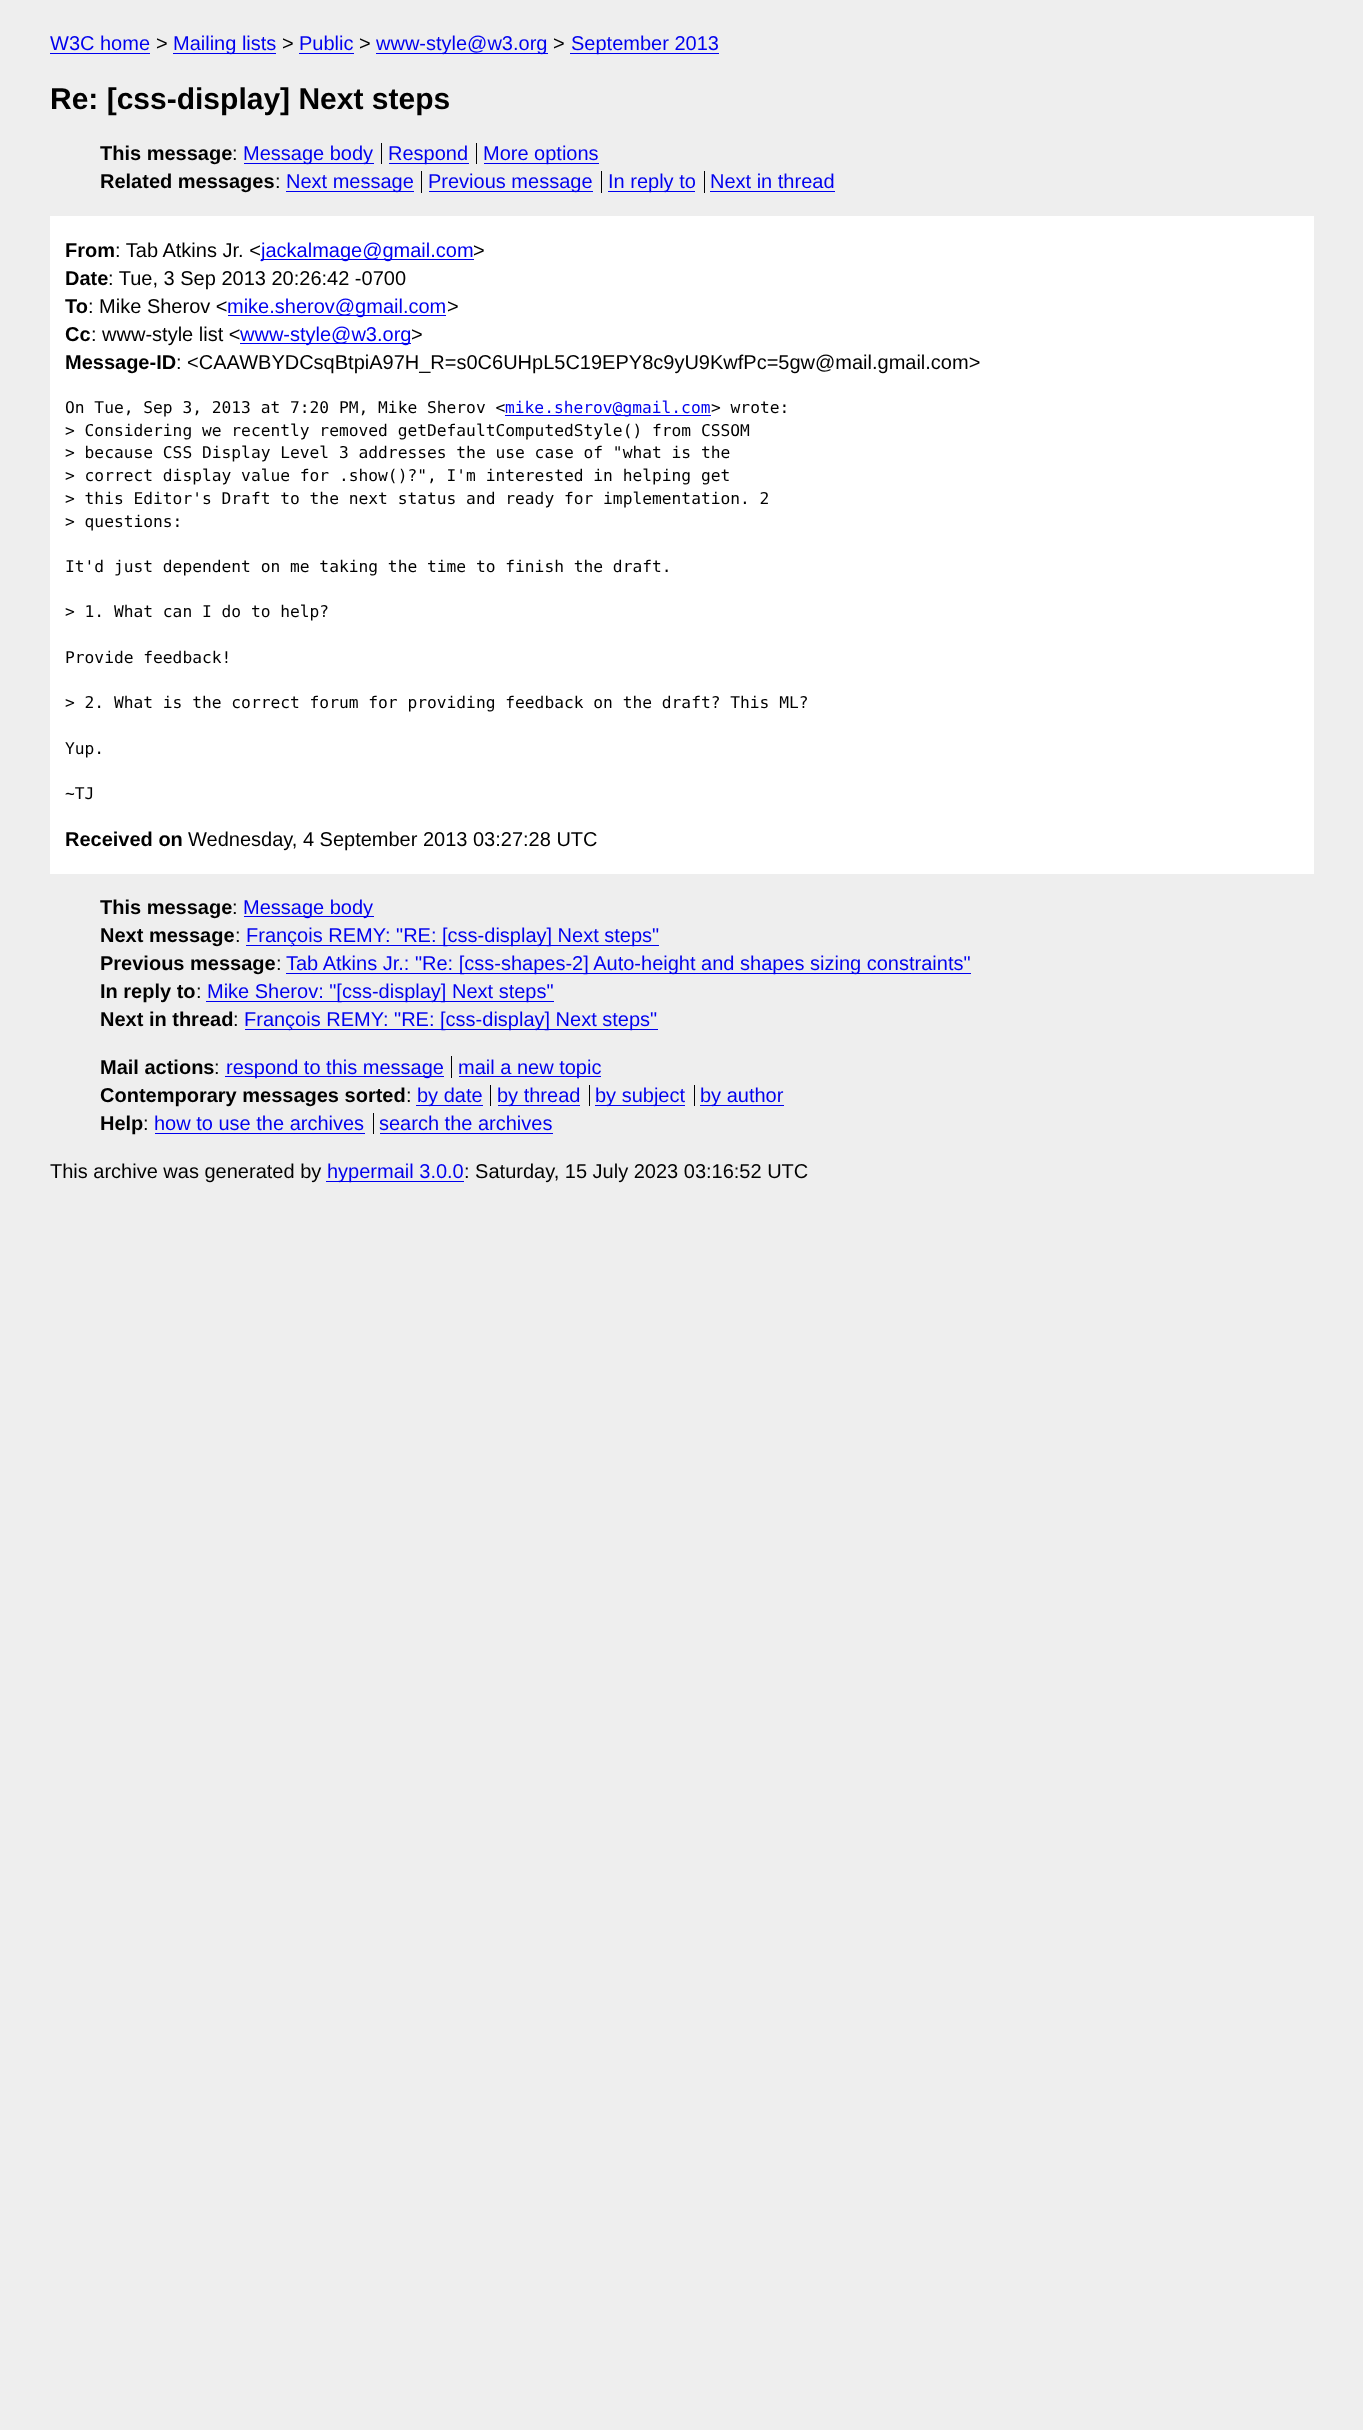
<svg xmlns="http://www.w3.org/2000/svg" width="1363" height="2430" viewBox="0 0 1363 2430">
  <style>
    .t1 { font: 20px Liberation Sans; fill: #00e; }
    .t2 { font: 20px Liberation Sans; fill: #000; }
    .t3 { font: bold 30px Liberation Sans; fill: #000; }
    .t4 { font: bold 20px Liberation Sans; fill: #000; }
    .t5 { font: 16.25px DejaVu Sans Mono; fill: #000; }
    .t6 { font: 16.25px DejaVu Sans Mono; fill: #00e; }
  </style>
  <rect width="100%" height="100%" fill="#eee"/>
  <text x="50" y="50" class="t1">W3C home</text>
  <rect x="50" y="53" width="100" height="1" fill="#00e"/>
  <text x="156" y="50" class="t2">&gt;</text>
  <rect x="173" y="53" width="103" height="1" fill="#00e"/>
  <text x="173" y="50" class="t1">Mailing lists</text>
  <text x="282" y="50" class="t2">&gt;</text>
  <text x="299" y="50" class="t1">Public</text>
  <rect x="299" y="53" width="55" height="1" fill="#00e"/>
  <text x="359" y="50" class="t2">&gt;</text>
  <rect x="376" y="53" width="172" height="1" fill="#00e"/>
  <text x="376" y="50" class="t1">www-style@w3.org</text>
  <text x="553" y="50" class="t2">&gt;</text>
  <rect x="570" y="53" width="149" height="1" fill="#00e"/>
  <text x="571" y="50" class="t1">September 2013</text>
  <text x="50" y="109" class="t3">Re: [css-display] Next steps</text>
  <text x="100" y="160" class="t4">This message</text>
  <text x="232" y="160" class="t2">:</text>
  <rect x="244" y="163" width="130" height="1" fill="#00e"/>
  <text x="243" y="160" class="t1">Message body</text>
  <rect x="381" y="143" width="1" height="21" fill="#000"/>
  <rect x="389" y="163" width="80" height="1" fill="#00e"/>
  <text x="388" y="160" class="t1">Respond</text>
  <rect x="484" y="163" width="115" height="1" fill="#00e"/>
  <text x="483" y="160" class="t1">More options</text>
  <rect x="476" y="143" width="1" height="21" fill="#000"/>
  <text x="100" y="188" class="t4">Related messages</text>
  <text x="275" y="188" class="t2">:</text>
  <rect x="286" y="191" width="128" height="1" fill="#00e"/>
  <text x="286" y="188" class="t1">Next message</text>
  <rect x="429" y="191" width="164" height="1" fill="#00e"/>
  <text x="428" y="188" class="t1">Previous message</text>
  <rect x="421" y="171" width="1" height="22" fill="#000"/>
  <rect x="608" y="191" width="87" height="1" fill="#00e"/>
  <text x="608" y="188" class="t1">In reply to</text>
  <rect x="601" y="171" width="1" height="22" fill="#000"/>
  <text x="710" y="188" class="t1">Next in thread</text>
  <rect x="704" y="171" width="1" height="22" fill="#000"/>
  <rect x="710" y="191" width="125" height="1" fill="#00e"/>
  <rect x="50" y="216" width="1264" height="658" fill="#fff"/>
  <text x="65" y="257" class="t4">From</text>
  <text x="115" y="257" class="t2">: Tab Atkins Jr. &lt;</text>
  <rect x="261" y="259" width="213" height="1" fill="#00e"/>
  <text x="261" y="257" class="t1">jackalmage@gmail.com</text>
  <text x="473" y="257" class="t2">&gt;</text>
  <text x="65" y="285" class="t4">Date</text>
  <text x="108" y="285" class="t2">: Tue, 3 Sep 2013 20:26:42 -0700</text>
  <text x="65" y="313" class="t4">To</text>
  <text x="88" y="313" class="t2">: Mike Sherov &lt;</text>
  <rect x="228" y="315" width="218" height="1" fill="#00e"/>
  <text x="227" y="313" class="t1">mike.sherov@gmail.com</text>
  <text x="447" y="313" class="t2">&gt;</text>
  <text x="65" y="341" class="t4">Cc</text>
  <text x="91" y="341" class="t2">: www-style list &lt;</text>
  <rect x="240" y="343" width="171" height="1" fill="#00e"/>
  <text x="240" y="341" class="t1">www-style@w3.org</text>
  <text x="411" y="341" class="t2">&gt;</text>
  <text x="65" y="369" class="t4">Message-ID</text>
  <text x="176" y="369" class="t2">: &lt;CAAWBYDCsqBtpiA97H_R=s0C6UHpL5C19EPY8c9yU9KwfPc=5gw@mail.gmail.com&gt;</text>
  <text x="65" y="413" class="t5">On Tue, Sep 3, 2013 at 7:20 PM, Mike Sherov &lt;</text>
  <rect x="505" y="415" width="206" height="1" fill="#00e"/>
  <text x="505" y="413" class="t6">mike.sherov@gmail.com</text>
  <text x="711" y="413" class="t5">&gt; wrote:</text>
  <text x="65" y="436" class="t5">&gt; Considering we recently removed getDefaultComputedStyle() from CSSOM</text>
  <text x="65" y="458" class="t5">&gt; because CSS Display Level 3 addresses the use case of "what is the</text>
  <text x="65" y="481" class="t5">&gt; correct display value for .show()?", I'm interested in helping get</text>
  <text x="65" y="504" class="t5">&gt; this Editor's Draft to the next status and ready for implementation. 2</text>
  <text x="65" y="527" class="t5">&gt; questions:</text>
  <text x="65" y="572" class="t5">It'd just dependent on me taking the time to finish the draft.</text>
  <text x="65" y="617" class="t5">&gt; 1. What can I do to help?</text>
  <text x="65" y="663" class="t5">Provide feedback!</text>
  <text x="65" y="708" class="t5">&gt; 2. What is the correct forum for providing feedback on the draft? This ML?</text>
  <text x="65" y="754" class="t5">Yup.</text>
  <text x="65" y="799" class="t5">~TJ</text>
  <text x="65" y="846" class="t4">Received on</text>
  <text x="188" y="846" class="t2">Wednesday, 4 September 2013 03:27:28 UTC</text>
  <text x="100" y="914" class="t4">This message</text>
  <text x="232" y="914" class="t2">:</text>
  <rect x="244" y="916" width="130" height="1" fill="#00e"/>
  <text x="243" y="914" class="t1">Message body</text>
  <text x="100" y="942" class="t4">Next message</text>
  <text x="235" y="942" class="t2">:</text>
  <rect x="246" y="945" width="413" height="1" fill="#00e"/>
  <text x="246" y="942" class="t1">François REMY: "RE: [css-display] Next steps"</text>
  <text x="100" y="970" class="t4">Previous message</text>
  <text x="276" y="970" class="t2">:</text>
  <rect x="286" y="973" width="685" height="1" fill="#00e"/>
  <text x="286" y="970" class="t1">Tab Atkins Jr.: "Re: [css-shapes-2] Auto-height and shapes sizing constraints"</text>
  <text x="100" y="998" class="t4">In reply to</text>
  <text x="196" y="998" class="t2">:</text>
  <rect x="206" y="1001" width="348" height="1" fill="#00e"/>
  <text x="207" y="998" class="t1">Mike Sherov: "[css-display] Next steps"</text>
  <text x="100" y="1026" class="t4">Next in thread</text>
  <text x="233" y="1026" class="t2">:</text>
  <rect x="245" y="1029" width="413" height="1" fill="#00e"/>
  <text x="244" y="1026" class="t1">François REMY: "RE: [css-display] Next steps"</text>
  <text x="100" y="1074" class="t4">Mail actions</text>
  <text x="214" y="1074" class="t2">:</text>
  <rect x="225" y="1076" width="219" height="1" fill="#00e"/>
  <text x="226" y="1074" class="t1">respond to this message</text>
  <rect x="459" y="1076" width="142" height="1" fill="#00e"/>
  <text x="458" y="1074" class="t1">mail a new topic</text>
  <rect x="451" y="1056" width="1" height="22" fill="#000"/>
  <text x="100" y="1102" class="t4">Contemporary messages sorted</text>
  <text x="406" y="1102" class="t2">:</text>
  <rect x="416" y="1105" width="67" height="1" fill="#00e"/>
  <text x="417" y="1102" class="t1">by date</text>
  <rect x="498" y="1105" width="82" height="1" fill="#00e"/>
  <text x="497" y="1102" class="t1">by thread</text>
  <rect x="490" y="1085" width="1" height="21" fill="#000"/>
  <rect x="595" y="1105" width="90" height="1" fill="#00e"/>
  <text x="595" y="1102" class="t1">by subject</text>
  <rect x="589" y="1085" width="1" height="21" fill="#000"/>
  <rect x="700" y="1105" width="84" height="1" fill="#00e"/>
  <text x="700" y="1102" class="t1">by author</text>
  <rect x="694" y="1085" width="1" height="21" fill="#000"/>
  <text x="100" y="1130" class="t4">Help</text>
  <text x="143" y="1130" class="t2">:</text>
  <text x="154" y="1130" class="t1">how to use the archives</text>
  <rect x="155" y="1133" width="210" height="1" fill="#00e"/>
  <text x="379" y="1130" class="t1">search the archives</text>
  <rect x="373" y="1113" width="1" height="21" fill="#000"/>
  <rect x="380" y="1133" width="173" height="1" fill="#00e"/>
  <text x="50" y="1178" class="t2">This archive was generated by</text>
  <rect x="326" y="1181" width="138" height="1" fill="#00e"/>
  <text x="327" y="1178" class="t1">hypermail 3.0.0</text>
  <text x="464" y="1178" class="t2">: Saturday, 15 July 2023 03:16:52 UTC</text>
</svg>
